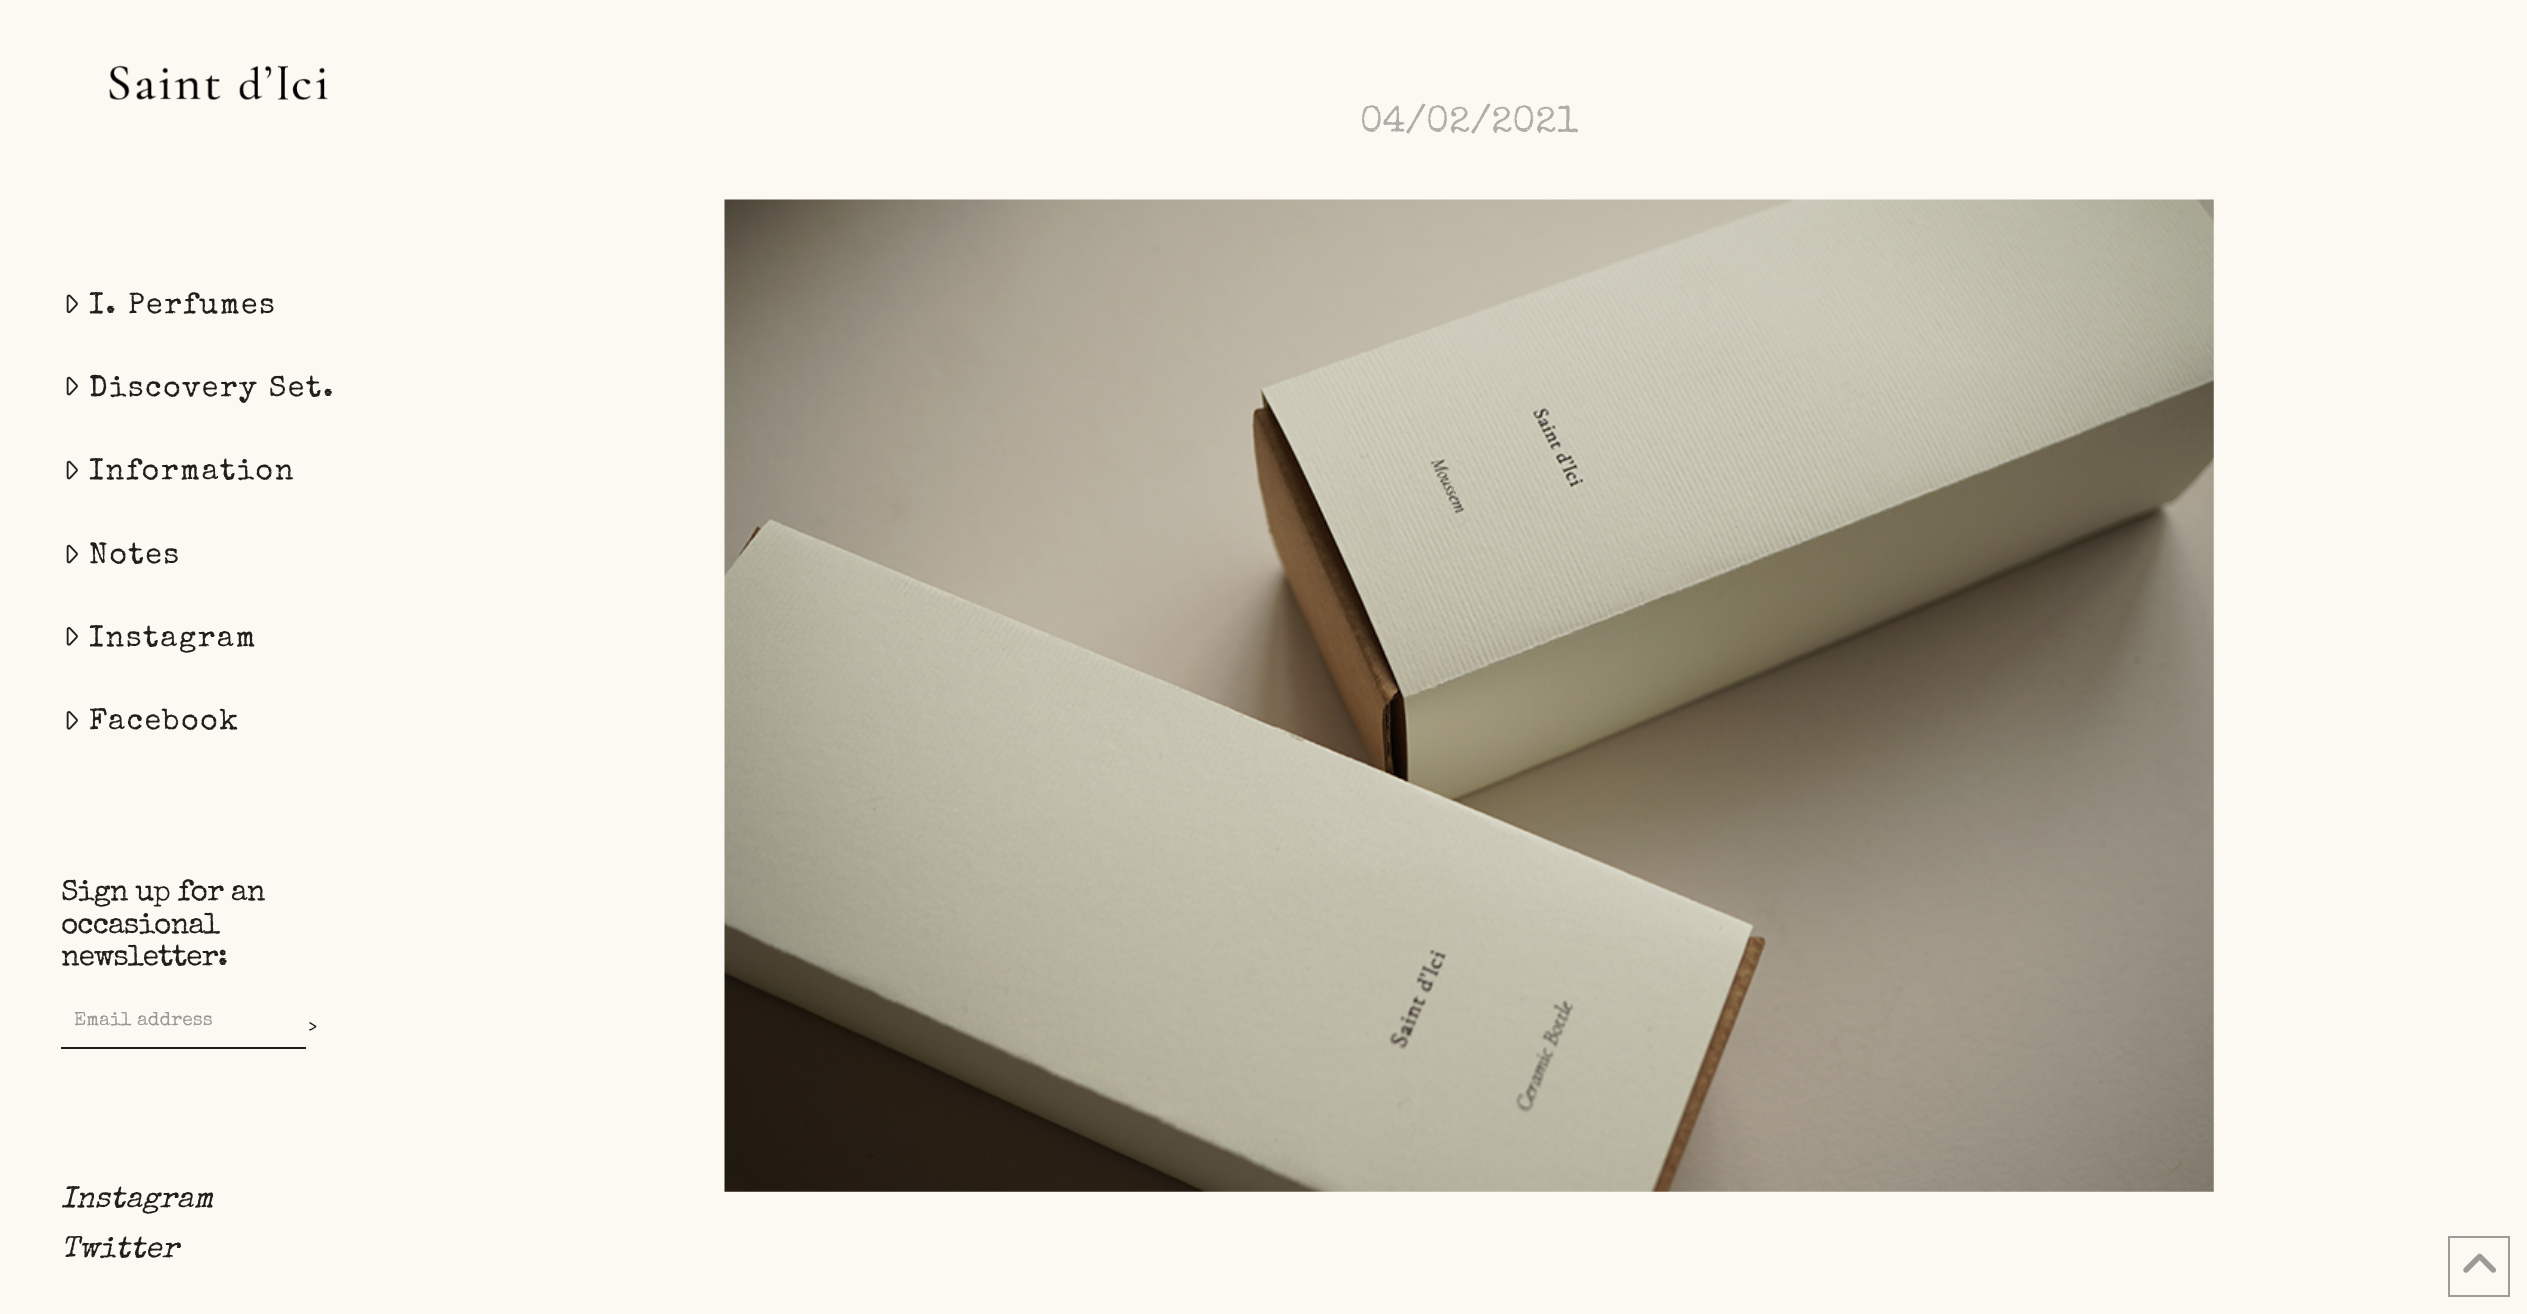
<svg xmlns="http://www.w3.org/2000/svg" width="2527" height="1314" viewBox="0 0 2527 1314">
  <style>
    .t1 { font: 37.25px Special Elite; fill: #afada7; }
    .t2 { font: 29.75px Special Elite; letter-spacing: 1.75px; fill: #1f1f1d; }
    .t3 { font: 29.75px Special Elite; letter-spacing: -1px; fill: #1f1f1d; }
    .t4 { font: 19.25px Special Elite; fill: #999; }
    .t5 { font: 19.25px Special Elite; fill: #1f1f1d; }
    .t6 { font: italic 29.75px Special Elite; fill: #1f1f1d; }
  </style>
  <defs>
    <clipPath id="clip1"><rect x="74" y="1012" width="220" height="19"/></clipPath>
  </defs>
  <rect width="100%" height="100%" fill="#fcf9f2"/>
  <text x="1360" y="132" class="t1">04/02/2021</text>
  <image x="724" y="199" width="1490" height="993" href="images/1.png"/>
  <image x="109" y="65" width="219" height="35" href="images/2.png"/>
  <image x="66" y="294" width="12" height="20" href="images/3.png"/>
  <text x="89" y="313" class="t2">I. Perfumes</text>
  <image x="66" y="376" width="12" height="20" href="images/4.png"/>
  <text x="89" y="396" class="t2">Discovery Set.</text>
  <image x="66" y="460" width="12" height="20" href="images/4.png"/>
  <text x="89" y="479" class="t2">Information</text>
  <image x="66" y="544" width="12" height="20" href="images/4.png"/>
  <text x="89" y="563" class="t2">Notes</text>
  <image x="66" y="627" width="12" height="19" href="images/5.png"/>
  <text x="89" y="646" class="t2">Instagram</text>
  <image x="66" y="711" width="12" height="19" href="images/5.png"/>
  <text x="89" y="729" class="t2">Facebook</text>
  <text x="61" y="900" class="t3">Sign up for an</text>
  <text x="61" y="933" class="t3">occasional</text>
  <text x="61" y="965" class="t3">newsletter:</text>
  <rect x="61" y="1047" width="245" height="2" fill="#1d1e1c"/>
  <g clip-path="url(#clip1)">
    <text x="74" y="1025" class="t4">Email address</text>
  </g>
  <text x="308" y="1033" class="t5">&gt;</text>
  <text x="61" y="1207" class="t6">Instagram</text>
  <text x="61" y="1257" class="t6">Twitter</text>
  <rect x="2449" y="1237" width="60" height="59" fill="none" stroke="#9e9c97" stroke-width="2"/>
  <image x="2463" y="1253" width="33" height="20" href="images/6.png"/>
</svg>
